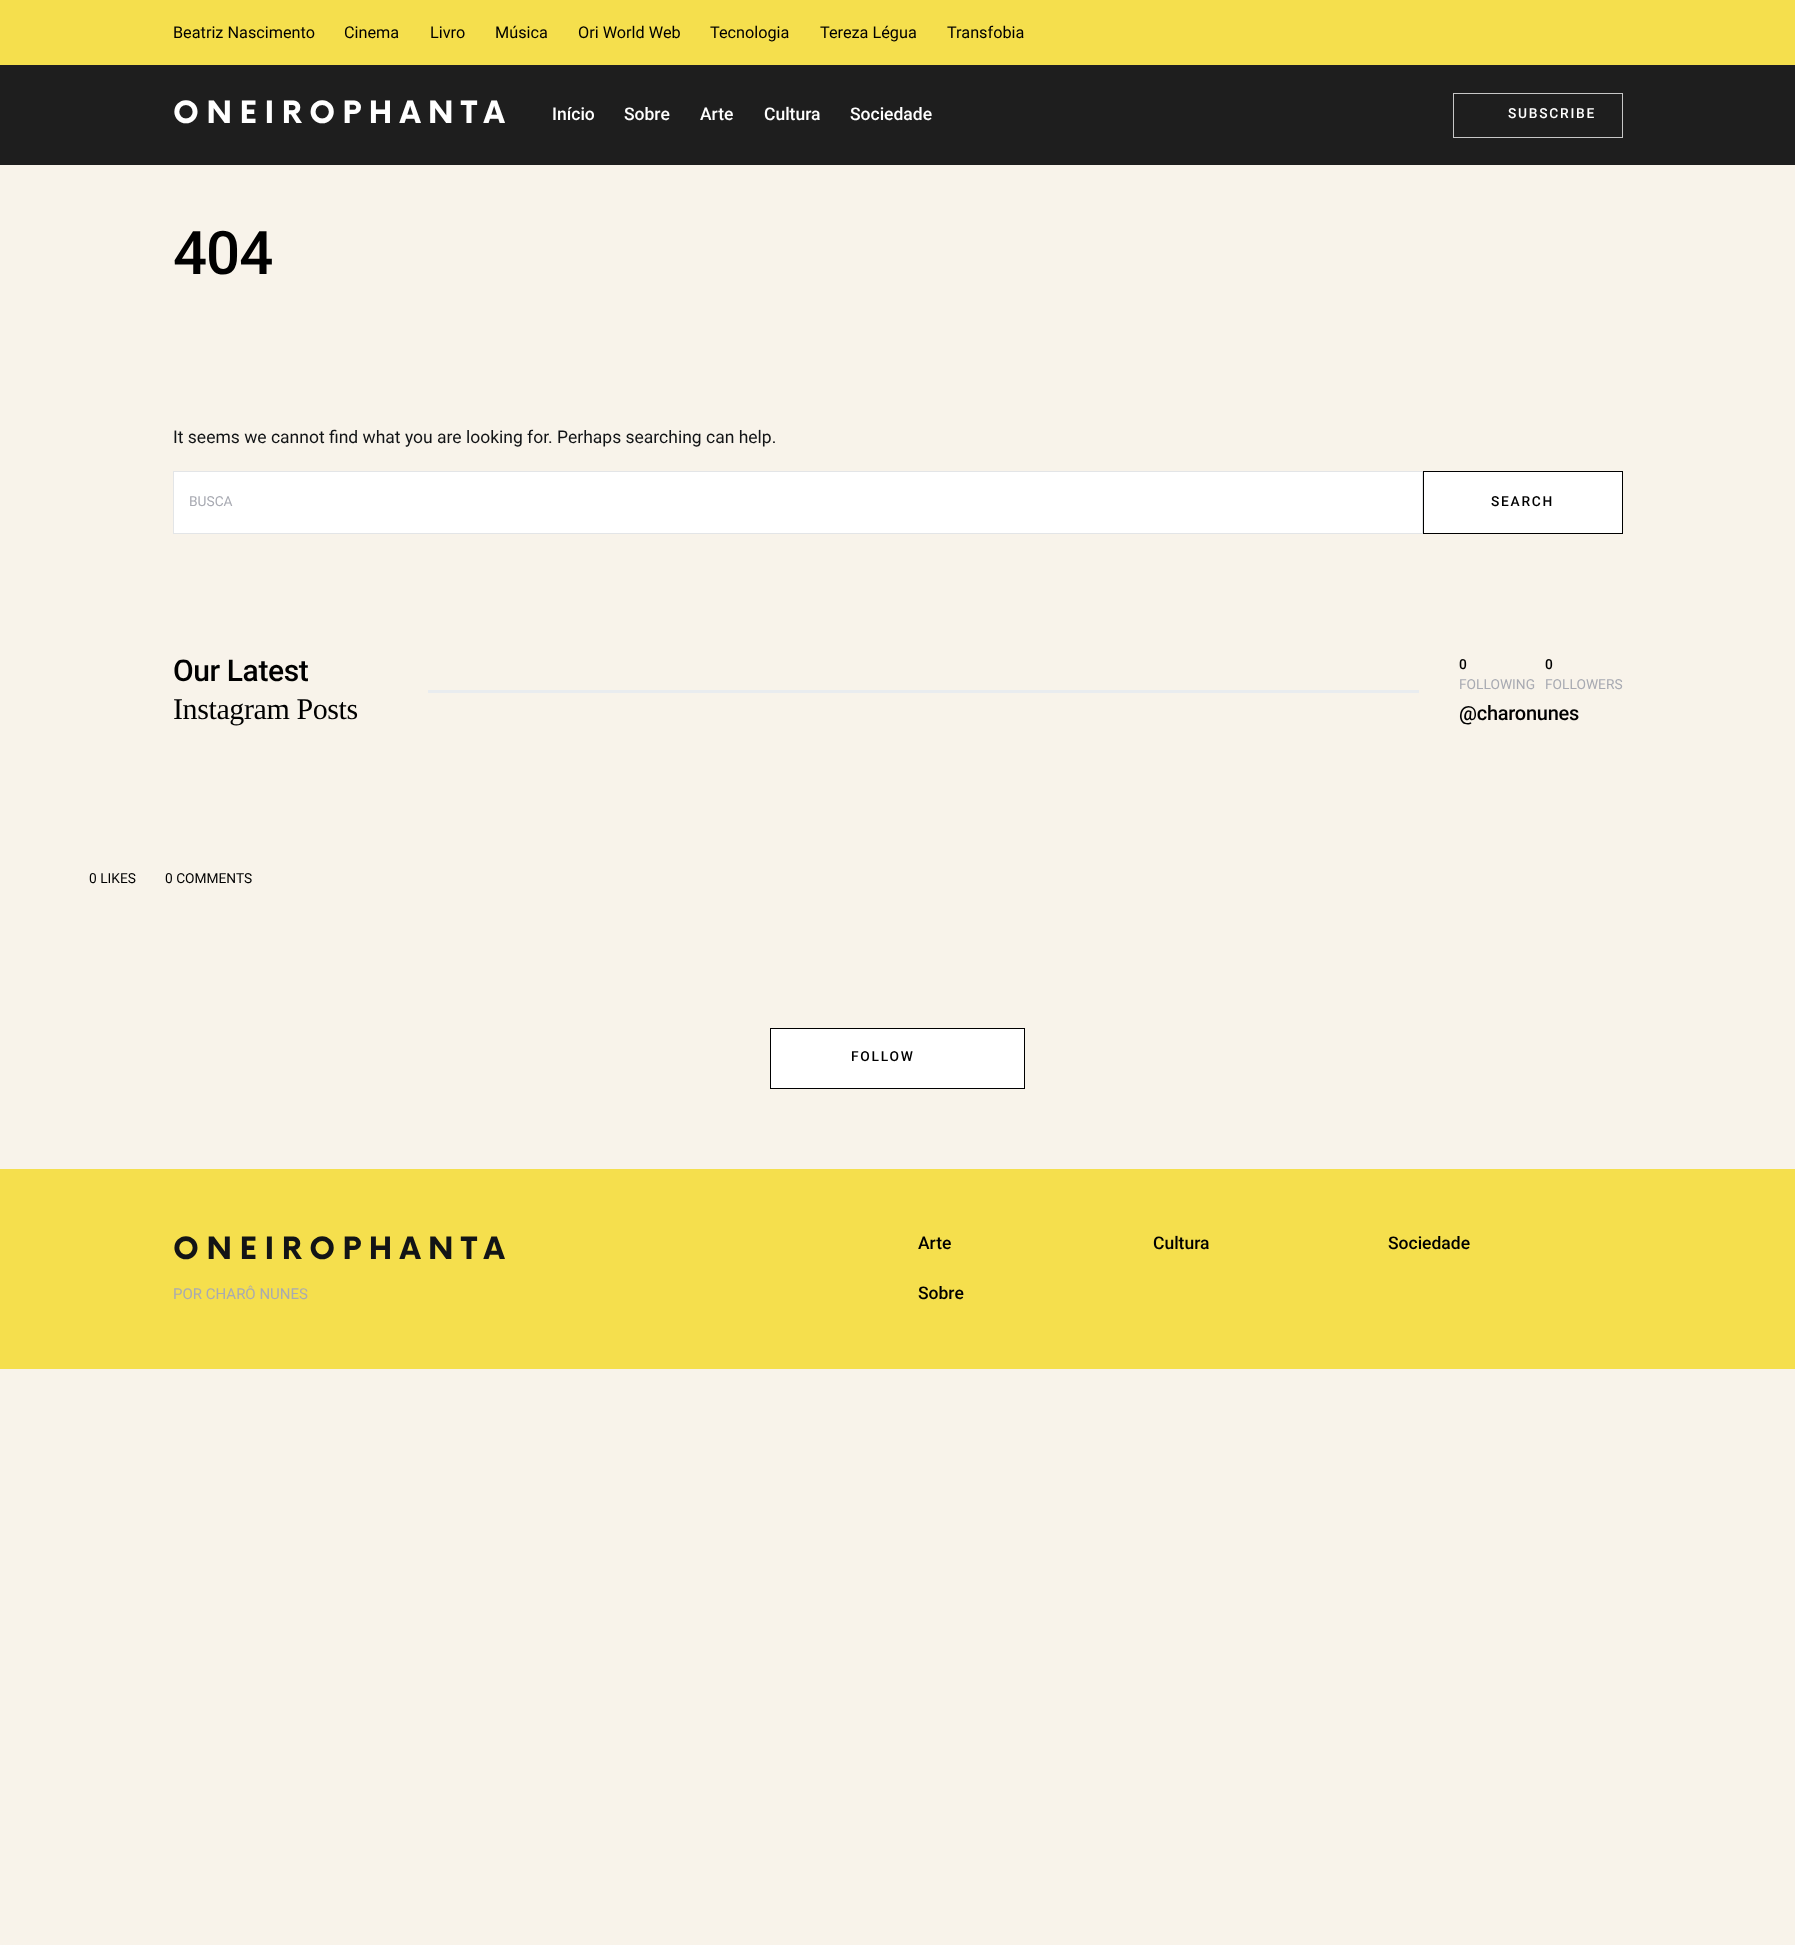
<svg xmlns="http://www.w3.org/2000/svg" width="1795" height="1945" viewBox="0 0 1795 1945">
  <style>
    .t1 { font: 16.25px Roboto; fill: #000; }
    .t2 { font: bold 30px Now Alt; letter-spacing: 7.5px; fill: #fff; }
    .t3 { font: 500 17.5px Roboto; fill: #fff; }
    .t4 { font: 500 13.75px Roboto; letter-spacing: 1.75px; fill: #fff; }
    .t5 { font: 500 60px Roboto; letter-spacing: -1px; fill: #000; }
    .t6 { font: 17.5px Roboto; fill: #121416; }
    .t7 { font: 13.75px Roboto; fill: #a8aab2; }
    .t8 { font: 500 13.75px Roboto; letter-spacing: 1.75px; fill: #000; }
    .t9 { font: 500 30px Roboto; letter-spacing: -0.4px; fill: #000; }
    .t10 { font: 30px Liberation Serif; letter-spacing: -0.4px; fill: #000; }
    .t11 { font: 500 20px Roboto; letter-spacing: -0.25px; fill: #000; }
    .t12 { font: 13.75px Roboto; fill: #000; }
    .t13 { font: bold 30px Now Alt; letter-spacing: 7.5px; fill: #121416; }
    .t14 { font: 15px Roboto; fill: #a8aab2; }
    .t15 { font: 500 17.5px Roboto; fill: #000; }
  </style>
  <rect width="100%" height="100%" fill="#f8f3ea"/>
  <rect x="0" y="0" width="1795" height="65" fill="#f5df4d"/>
  <text x="173" y="38" class="t1">Beatriz Nascimento</text>
  <text x="344" y="38" class="t1">Cinema</text>
  <text x="430" y="38" class="t1">Livro</text>
  <text x="495" y="38" class="t1">Música</text>
  <text x="578" y="38" class="t1">Ori World Web</text>
  <text x="710" y="38" class="t1">Tecnologia</text>
  <text x="820" y="38" class="t1">Tereza Légua</text>
  <text x="947" y="38" class="t1">Transfobia</text>
  <rect x="0" y="65" width="1795" height="100" fill="#1e1e1e"/>
  <text x="173" y="123" class="t2">ONEIROPHANTA</text>
  <text x="552" y="120" class="t3">Início</text>
  <text x="624" y="120" class="t3">Sobre</text>
  <text x="700" y="120" class="t3">Arte</text>
  <text x="764" y="120" class="t3">Cultura</text>
  <text x="850" y="120" class="t3">Sociedade</text>
  <rect x="1453.5" y="93.5" width="169" height="44" fill="none" stroke="#c7c7c7"/>
  <text x="1508" y="118" class="t4">SUBSCRIBE</text>
  <text x="173" y="274" class="t5">404</text>
  <text x="173" y="443" class="t6">It seems we cannot find what you are looking for. Perhaps searching can help.</text>
  <rect x="173.5" y="471.5" width="1249" height="62" fill="#fff" stroke="#e3e5e7"/>
  <text x="189" y="506" class="t7">BUSCA</text>
  <rect x="1423.5" y="471.5" width="199" height="62" fill="#fff" stroke="#000"/>
  <text x="1491" y="506" class="t8">SEARCH</text>
  <text x="173" y="681" class="t9">Our Latest</text>
  <text x="173" y="719" class="t10">Instagram Posts</text>
  <rect x="428" y="690" width="991" height="3" fill="#e9ecef"/>
  <text x="1459" y="669" class="t8">0</text>
  <text x="1459" y="689" class="t7">FOLLOWING</text>
  <text x="1545" y="669" class="t8">0</text>
  <text x="1545" y="689" class="t7">FOLLOWERS</text>
  <text x="1459" y="720" class="t11">@charonunes</text>
  <text x="89" y="883" class="t12">0 LIKES</text>
  <text x="165" y="883" class="t12">0 COMMENTS</text>
  <rect x="770.5" y="1028.5" width="254" height="60" fill="#fff" stroke="#000"/>
  <text x="851" y="1061" class="t8">FOLLOW</text>
  <rect x="0" y="1169" width="1795" height="200" fill="#f5df4d"/>
  <text x="173" y="1259" class="t13">ONEIROPHANTA</text>
  <text x="173" y="1299" class="t14">POR CHARÔ NUNES</text>
  <text x="918" y="1249" class="t15">Arte</text>
  <text x="1153" y="1249" class="t15">Cultura</text>
  <text x="1388" y="1249" class="t15">Sociedade</text>
  <text x="918" y="1299" class="t15">Sobre</text>
</svg>
